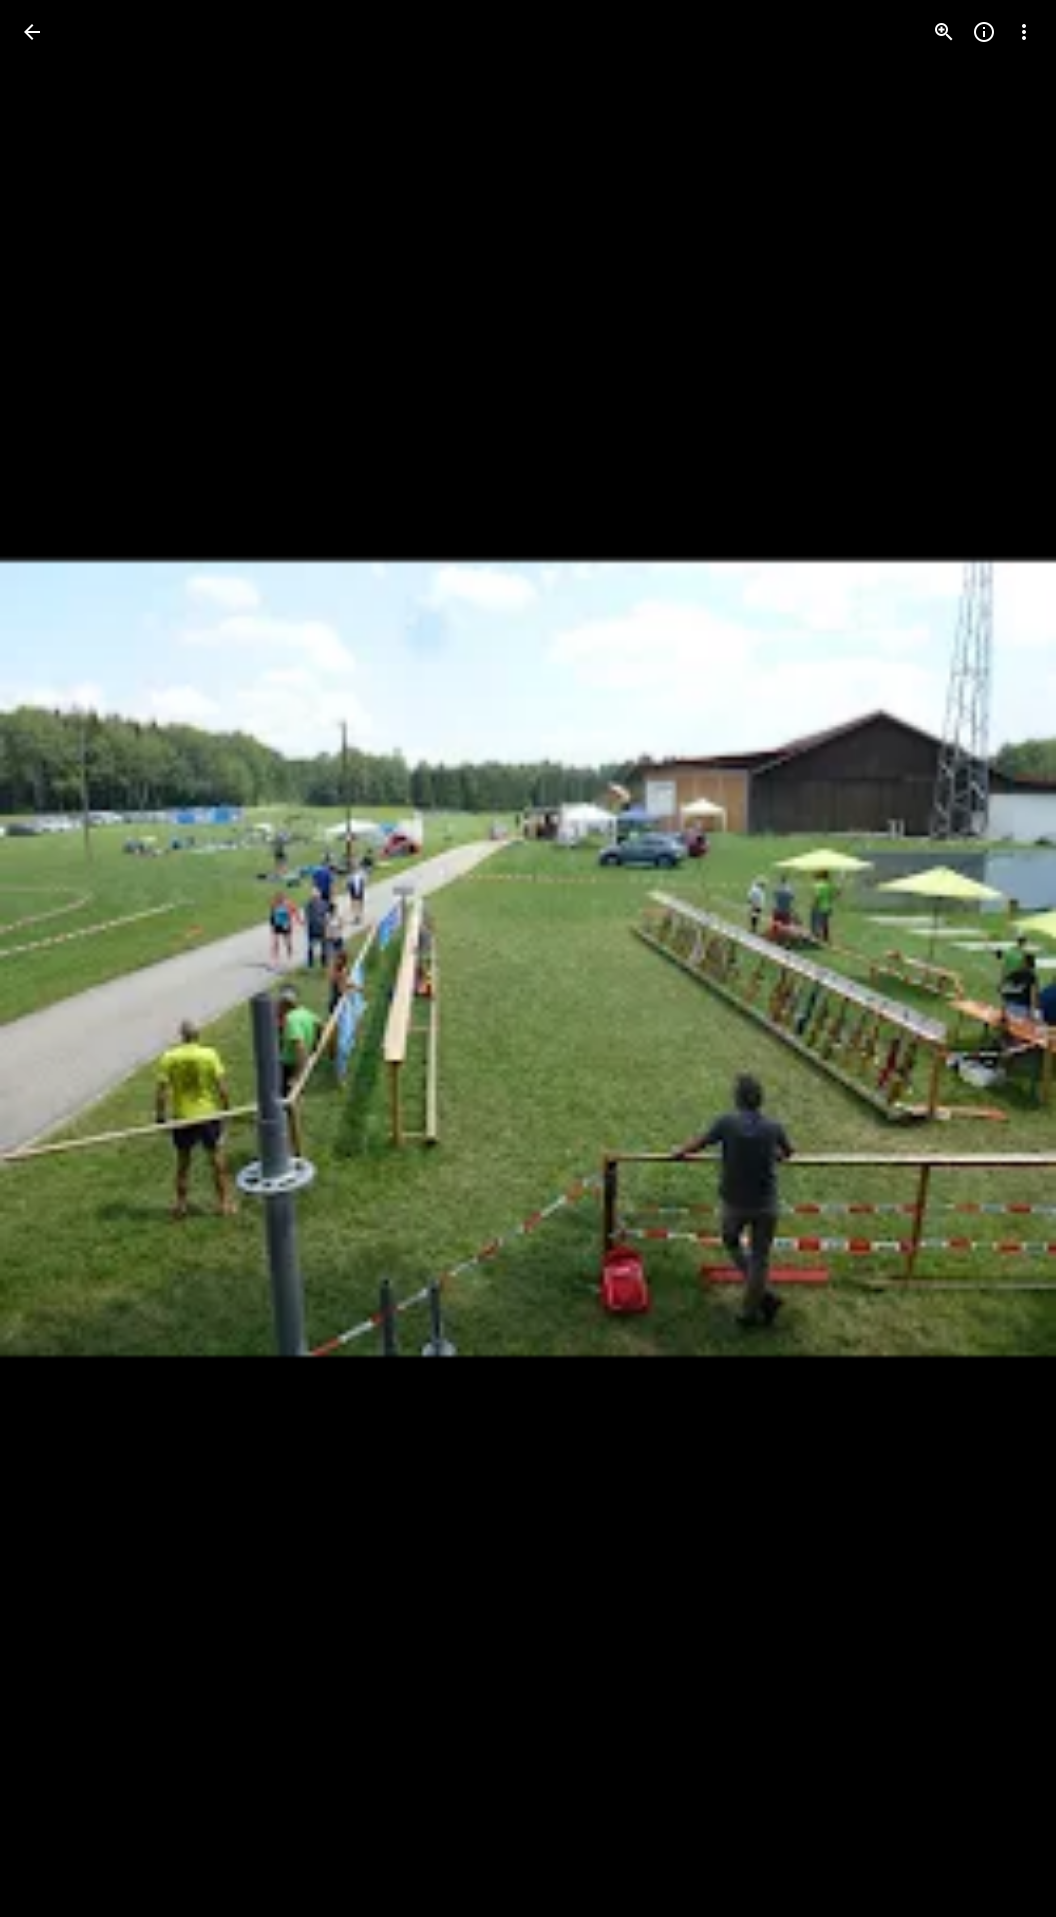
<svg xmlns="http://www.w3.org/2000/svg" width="1056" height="1917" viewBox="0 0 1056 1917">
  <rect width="100%" height="100%" fill="#000"/>
  <image x="24" y="24" width="16" height="16" href="images/1.png"/>
  <image x="935" y="23" width="18" height="18" href="images/2.png"/>
  <image x="974" y="22" width="20" height="20" href="images/3.png"/>
  <image x="1022" y="24" width="4" height="16" href="images/4.png"/>
  <image x="0" y="556" width="1056" height="802" href="images/5.png"/>
</svg>
